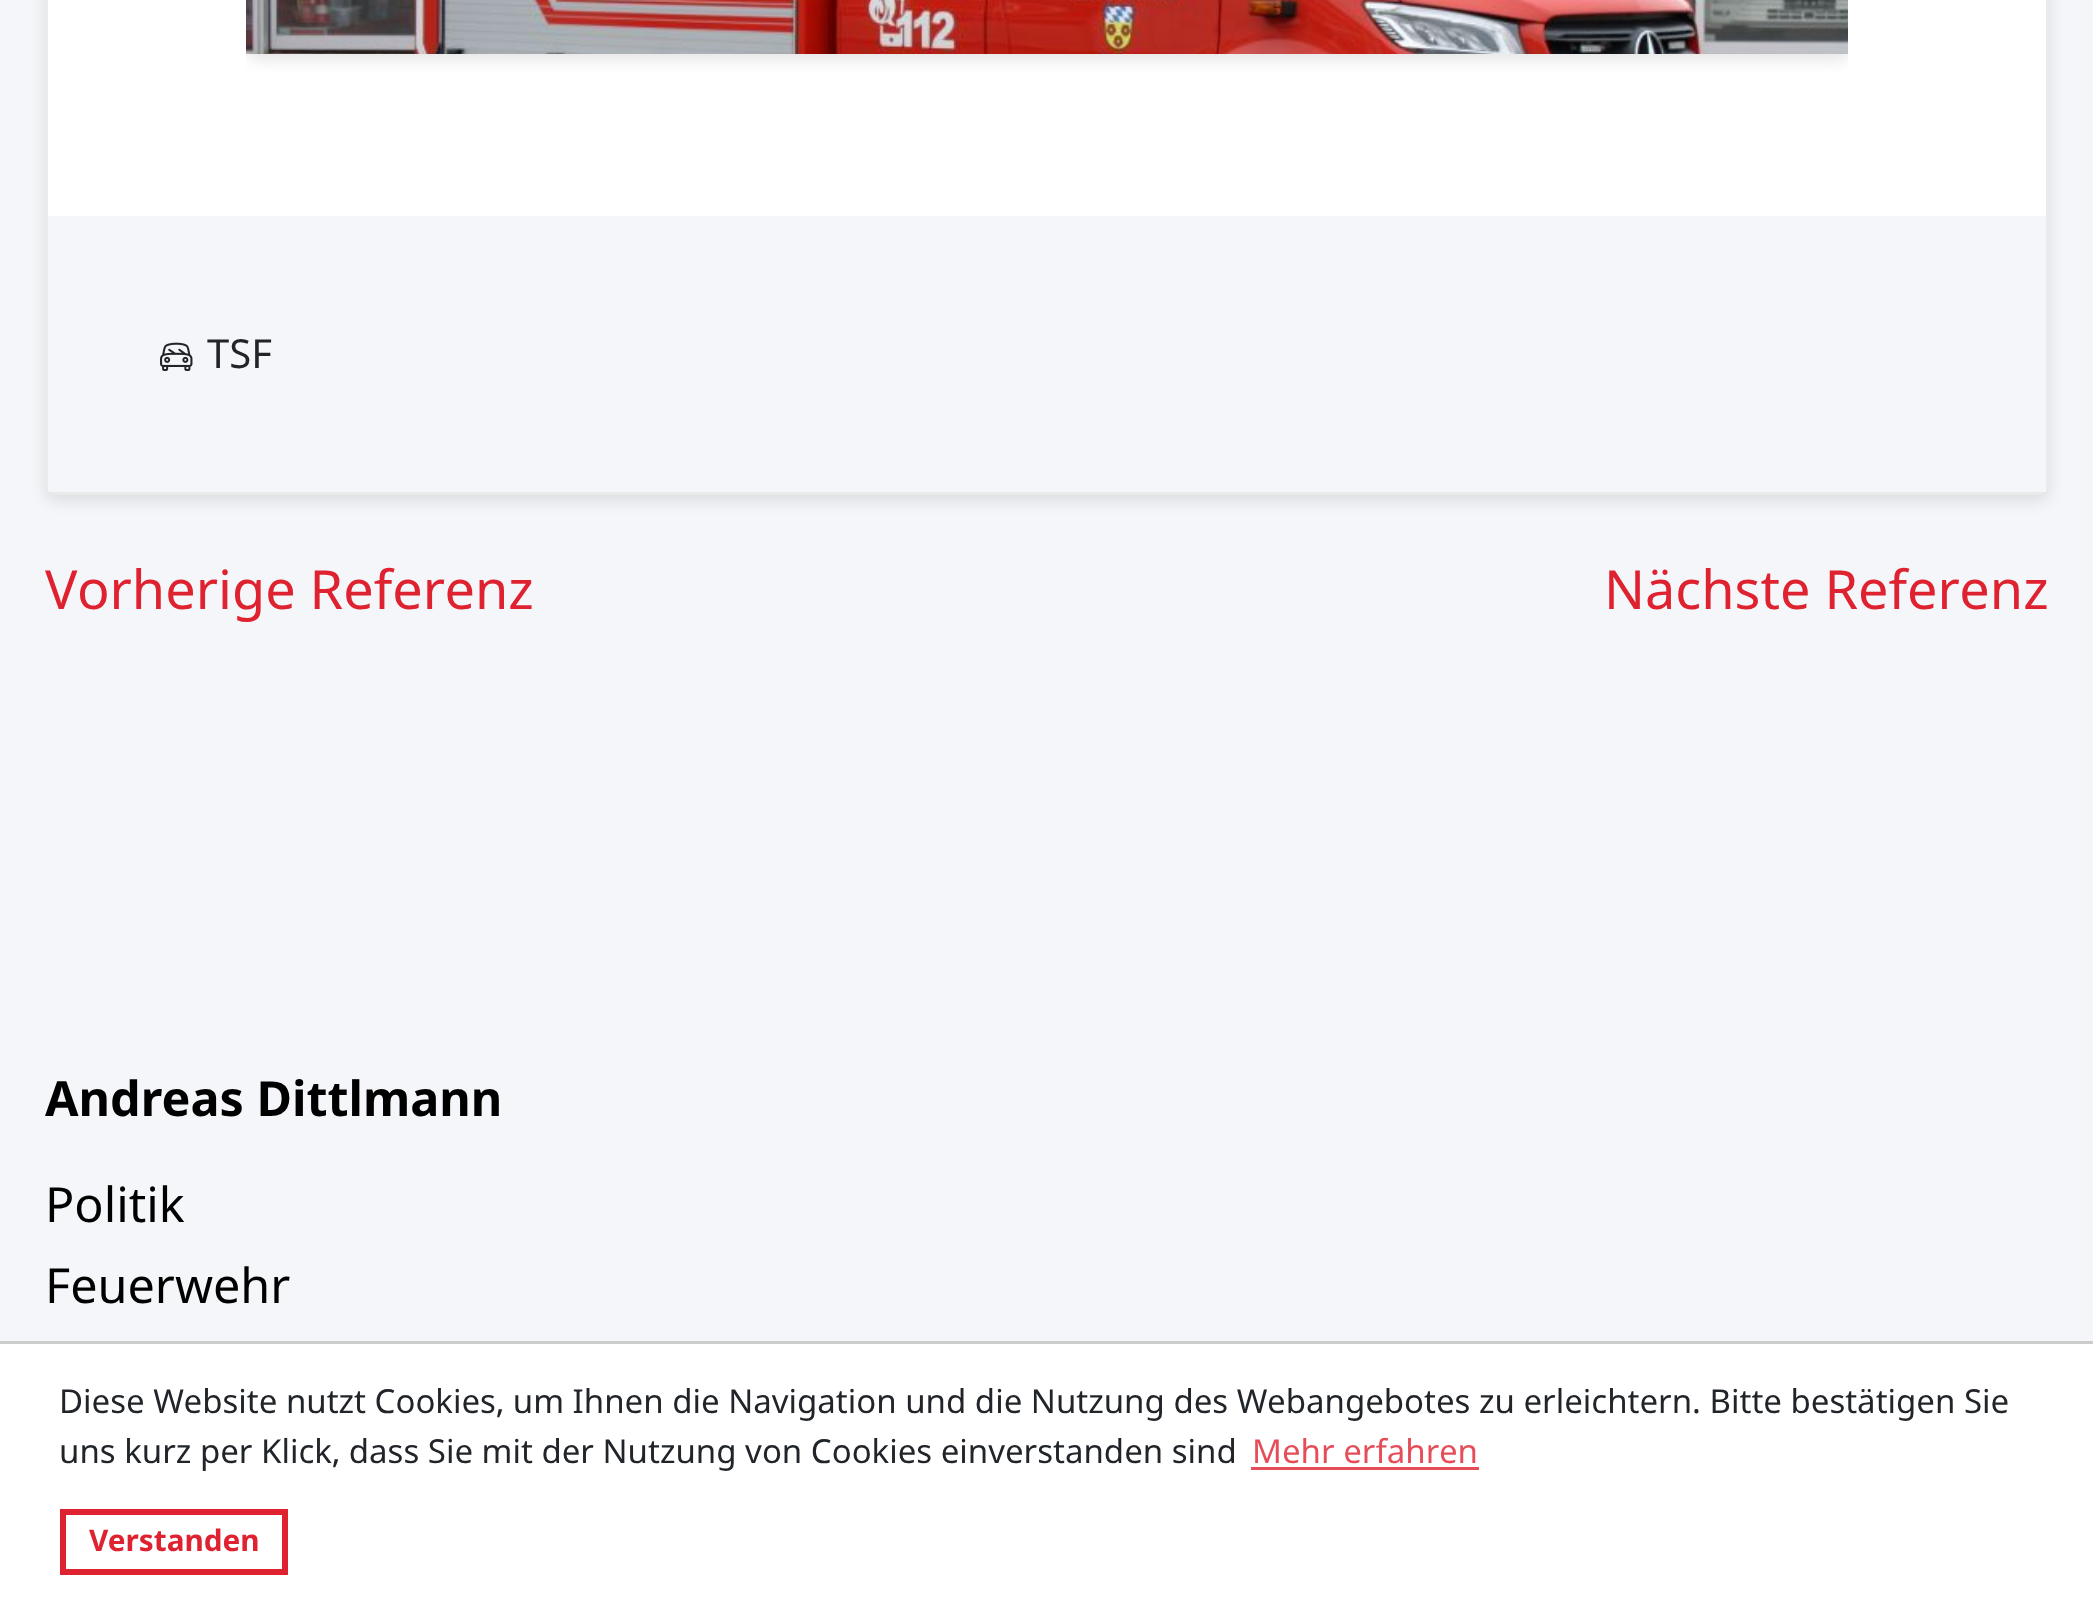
<svg xmlns="http://www.w3.org/2000/svg" width="2093" height="1607" viewBox="0 0 2093 1607">
  <style>
    .t1 { font: 40px Noto Sans; fill: #212529; }
    .t2 { font: 54px Noto Sans; fill: #de222f; }
    .t3 { font: bold 48.5px Noto Sans; fill: #000; }
    .t4 { font: 48.5px Noto Sans; fill: #000; }
    .t5 { font: 33px Noto Sans; fill: #212529; }
    .t6 { font: 33px Noto Sans; fill: #e54e59; }
    .t7 { font: bold 29.75px Noto Sans; fill: #de222f; }
  </style>
  <defs>
    <clipPath id="clip1"><rect x="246" y="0" width="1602" height="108"/></clipPath>
  </defs>
  <rect width="100%" height="100%" fill="#f4f6f9"/>
  <rect x="45" y="-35" width="2004" height="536" rx="12" fill="#0000001a" filter="blur(7.5px)"/>
  <rect x="46.5" y="-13.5" width="2001" height="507" rx="10.5" fill="#fff" stroke="#eaeaea" stroke-width="3"/>
  <g clip-path="url(#clip1)">
    <rect x="246" y="-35" width="1605" height="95" rx="12" fill="#0000001a" filter="blur(7.5px)"/>
  </g>
  <image x="246" y="0" width="1602" height="54" href="images/1.png"/>
  <rect x="48" y="216" width="1998" height="276" fill="#f4f6f9"/>
  <image x="160" y="342" width="33" height="29" href="images/2.png"/>
  <text x="207" y="368" class="t1">TSF</text>
  <text x="45" y="609" class="t2">Vorherige Referenz</text>
  <text x="1604" y="609" class="t2">Nächste Referenz</text>
  <text x="45" y="1116" class="t3">Andreas Dittlmann</text>
  <text x="45" y="1222" class="t4">Politik</text>
  <text x="45" y="1303" class="t4">Feuerwehr</text>
  <rect x="0" y="1344" width="2093" height="263" fill="#fff"/>
  <rect x="0" y="1341" width="2093" height="3" fill="#ccc"/>
  <text x="59" y="1413" class="t5">Diese Website nutzt Cookies, um Ihnen die Navigation und die Nutzung des Webangebotes zu erleichtern. Bitte bestätigen Sie</text>
  <text x="59" y="1463" class="t5">uns kurz per Klick, dass Sie mit der Nutzung von Cookies einverstanden sind</text>
  <text x="1252" y="1463" class="t6">Mehr erfahren</text>
  <rect x="1251" y="1467" width="228" height="3" fill="#e54e59"/>
  <rect x="63" y="1512" width="222" height="60" fill="none" stroke="#de222f" stroke-width="6"/>
  <text x="89" y="1551" class="t7">Verstanden</text>
</svg>
